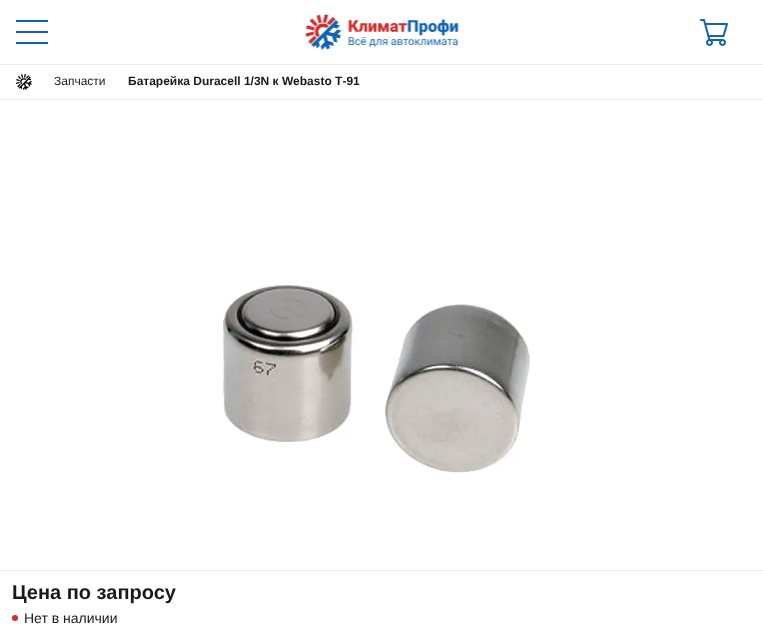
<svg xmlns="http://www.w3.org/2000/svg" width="763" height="635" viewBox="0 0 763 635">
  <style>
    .t1 { font: 12px Liberation Sans; fill: #191919; }
    .t2 { font: bold 12px Liberation Sans; fill: #191919; }
    .t3 { font: bold 20px Liberation Sans; fill: #191919; }
    .t4 { font: 14px Liberation Sans; fill: #191919; }
  </style>
  <rect width="100%" height="100%" fill="#fff"/>
  <rect x="0" y="64" width="763" height="1" fill="#ececec"/>
  <image x="305" y="14" width="154" height="36" href="images/1.png"/>
  <rect x="16" y="42" width="32" height="2" fill="#1263af"/>
  <rect x="16" y="20" width="32" height="2" fill="#1263af"/>
  <rect x="16" y="31" width="32" height="2" fill="#1263af"/>
  <image x="700" y="19" width="28" height="27" href="images/2.png"/>
  <rect x="0" y="99" width="763" height="1" fill="#ececec"/>
  <image x="16" y="74" width="16" height="16" href="images/3.png"/>
  <text x="54" y="85" class="t1">Запчасти</text>
  <text x="128" y="85" class="t2">Батарейка Duracell 1/3N к Webasto Т-91</text>
  <image x="222" y="284" width="308" height="189" href="images/4.png"/>
  <rect x="0" y="570" width="763" height="1" fill="#ececec"/>
  <text x="12" y="599" class="t3">Цена по запросу</text>
  <circle cx="15" cy="618" r="3" fill="#d12d2c"/>
  <text x="24" y="623" class="t4">Нет в наличии</text>
</svg>
